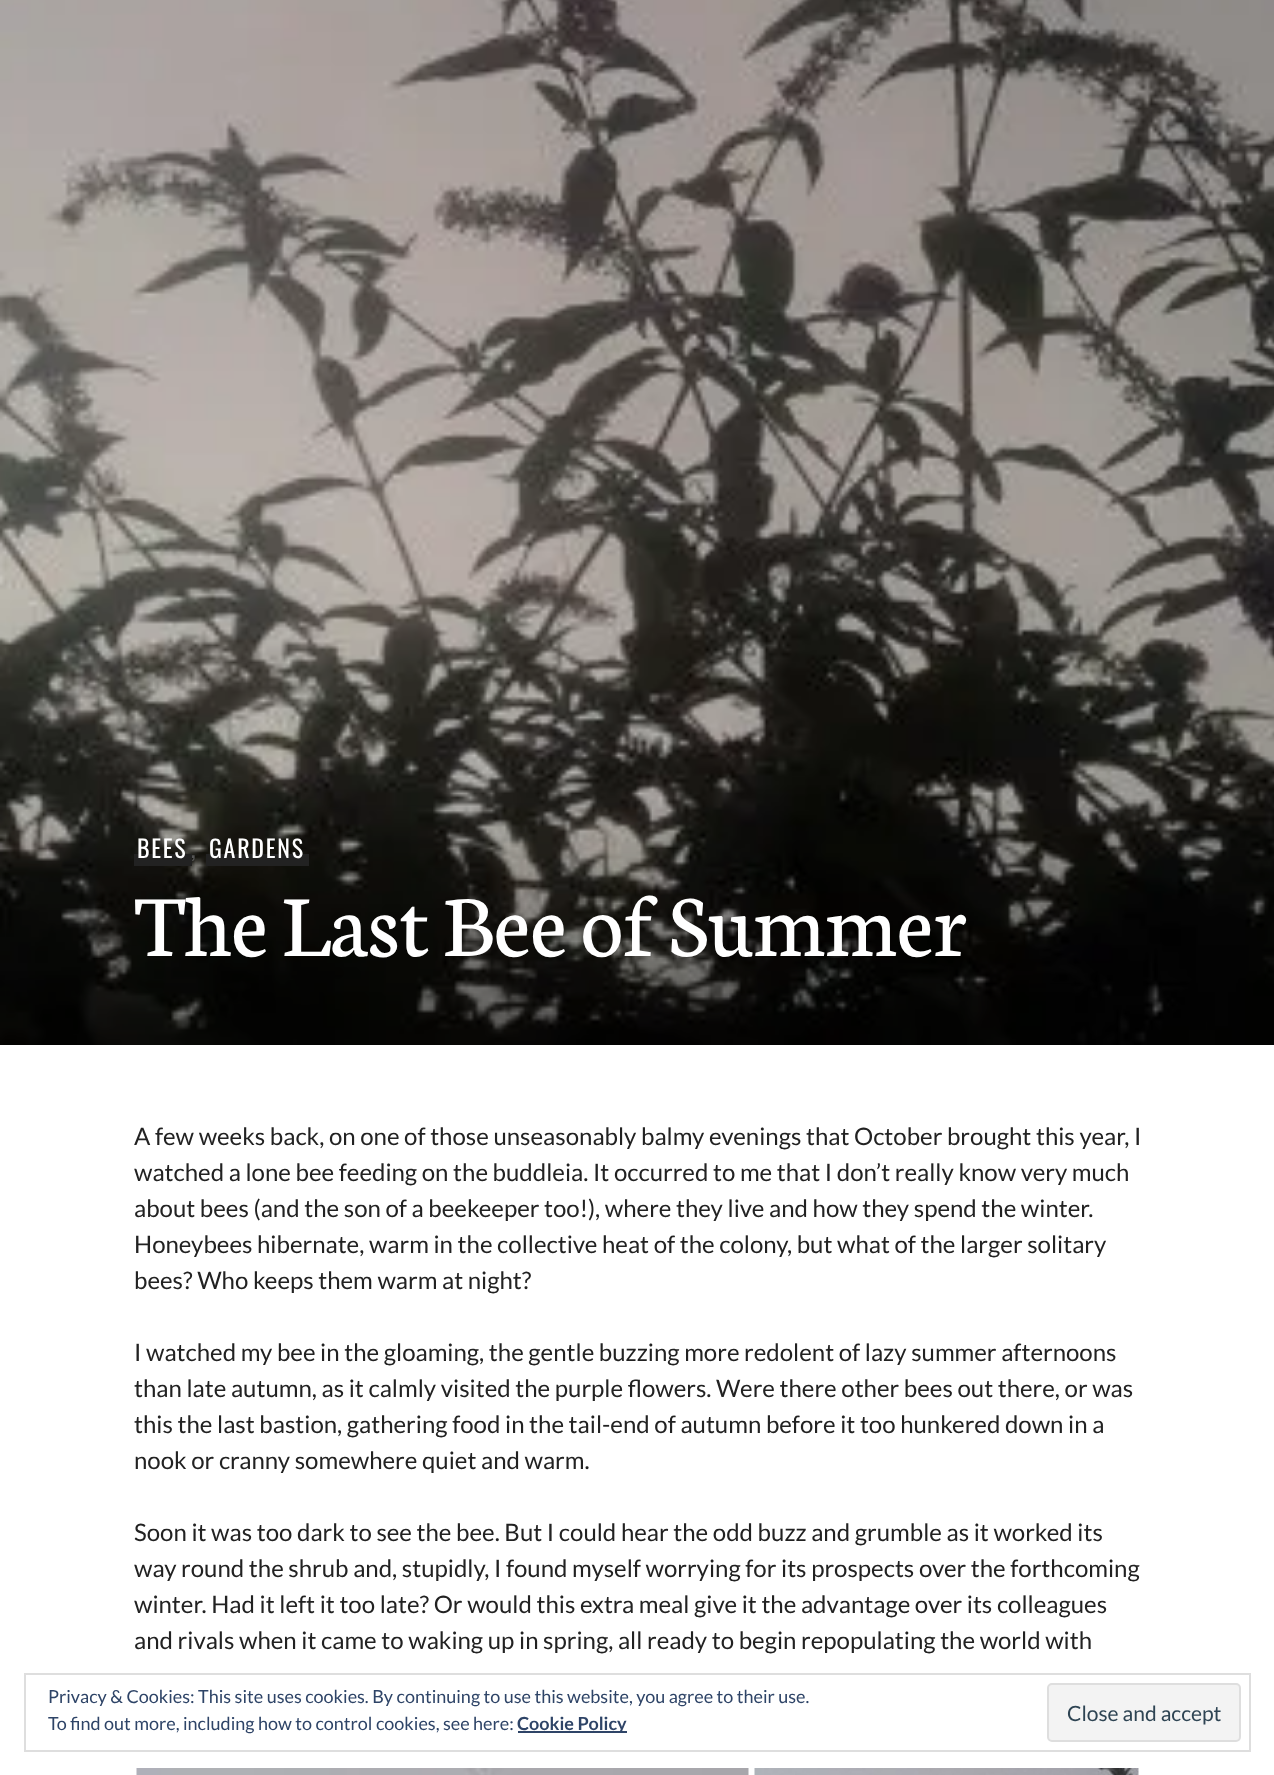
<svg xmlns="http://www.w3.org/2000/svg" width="1274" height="1775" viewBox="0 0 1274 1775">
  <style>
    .t1 { font: 24px Oswald; letter-spacing: 1.75px; fill: #fff; }
    .t2 { font: 24px Oswald; letter-spacing: 1.75px; fill: #555; }
    .t3 { font: 93px Neuton; fill: #fff; }
    .t4 { font: 24px Lato; fill: #222; }
    .t5 { font: 18px Lato; fill: #2e4467; }
    .t6 { font: bold 18px Lato; fill: #2e4467; }
    .t7 { font: 21px Lato; fill: #2e4453; }
  </style>
  <rect width="100%" height="100%" fill="#fff"/>
  <image x="0" y="0" width="1274" height="1045" href="images/1.png"/>
  <rect x="134" y="854" width="58" height="12" fill="#222"/>
  <text x="137" y="858" class="t1">BEES</text>
  <text x="191" y="858" class="t2">,</text>
  <rect x="206" y="854" width="103" height="12" fill="#222"/>
  <text x="209" y="858" class="t1">GARDENS</text>
  <text x="134" y="956" class="t3">The Last Bee of Summer</text>
  <text x="134" y="1145" class="t4">A few weeks back, on one of those unseasonably balmy evenings that October brought this year, I</text>
  <text x="134" y="1181" class="t4">watched a lone bee feeding on the buddleia. It occurred to me that I don’t really know very much</text>
  <text x="134" y="1217" class="t4">about bees (and the son of a beekeeper too!), where they live and how they spend the winter.</text>
  <text x="134" y="1253" class="t4">Honeybees hibernate, warm in the collective heat of the colony, but what of the larger solitary</text>
  <text x="134" y="1289" class="t4">bees? Who keeps them warm at night?</text>
  <text x="134" y="1361" class="t4">I watched my bee in the gloaming, the gentle buzzing more redolent of lazy summer afternoons</text>
  <text x="134" y="1397" class="t4">than late autumn, as it calmly visited the purple flowers. Were there other bees out there, or was</text>
  <text x="134" y="1433" class="t4">this the last bastion, gathering food in the tail-end of autumn before it too hunkered down in a</text>
  <text x="134" y="1469" class="t4">nook or cranny somewhere quiet and warm.</text>
  <text x="134" y="1541" class="t4">Soon it was too dark to see the bee. But I could hear the odd buzz and grumble as it worked its</text>
  <text x="134" y="1577" class="t4">way round the shrub and, stupidly, I found myself worrying for its prospects over the forthcoming</text>
  <text x="134" y="1613" class="t4">winter. Had it left it too late? Or would this extra meal give it the advantage over its colleagues</text>
  <text x="134" y="1649" class="t4">and rivals when it came to waking up in spring, all ready to begin repopulating the world with</text>
  <image x="136" y="1768" width="613" height="7" href="images/2.png"/>
  <image x="754" y="1768" width="385" height="7" href="images/3.png"/>
  <rect x="25" y="1674" width="1225" height="77" fill="none" stroke="#dedede" stroke-width="2"/>
  <text x="48" y="1703" class="t5">Privacy &amp; Cookies: This site uses cookies. By continuing to use this website, you agree to their use.</text>
  <text x="48" y="1730" class="t5">To find out more, including how to control cookies, see here:</text>
  <rect x="518" y="1731" width="109" height="2" fill="#2e4467"/>
  <text x="517" y="1730" class="t6">Cookie Policy</text>
  <rect x="1048" y="1684" width="192" height="57" rx="4" fill="#f3f3f3" stroke="#dedede" stroke-width="2"/>
  <text x="1067" y="1721" class="t7">Close and accept</text>
</svg>
